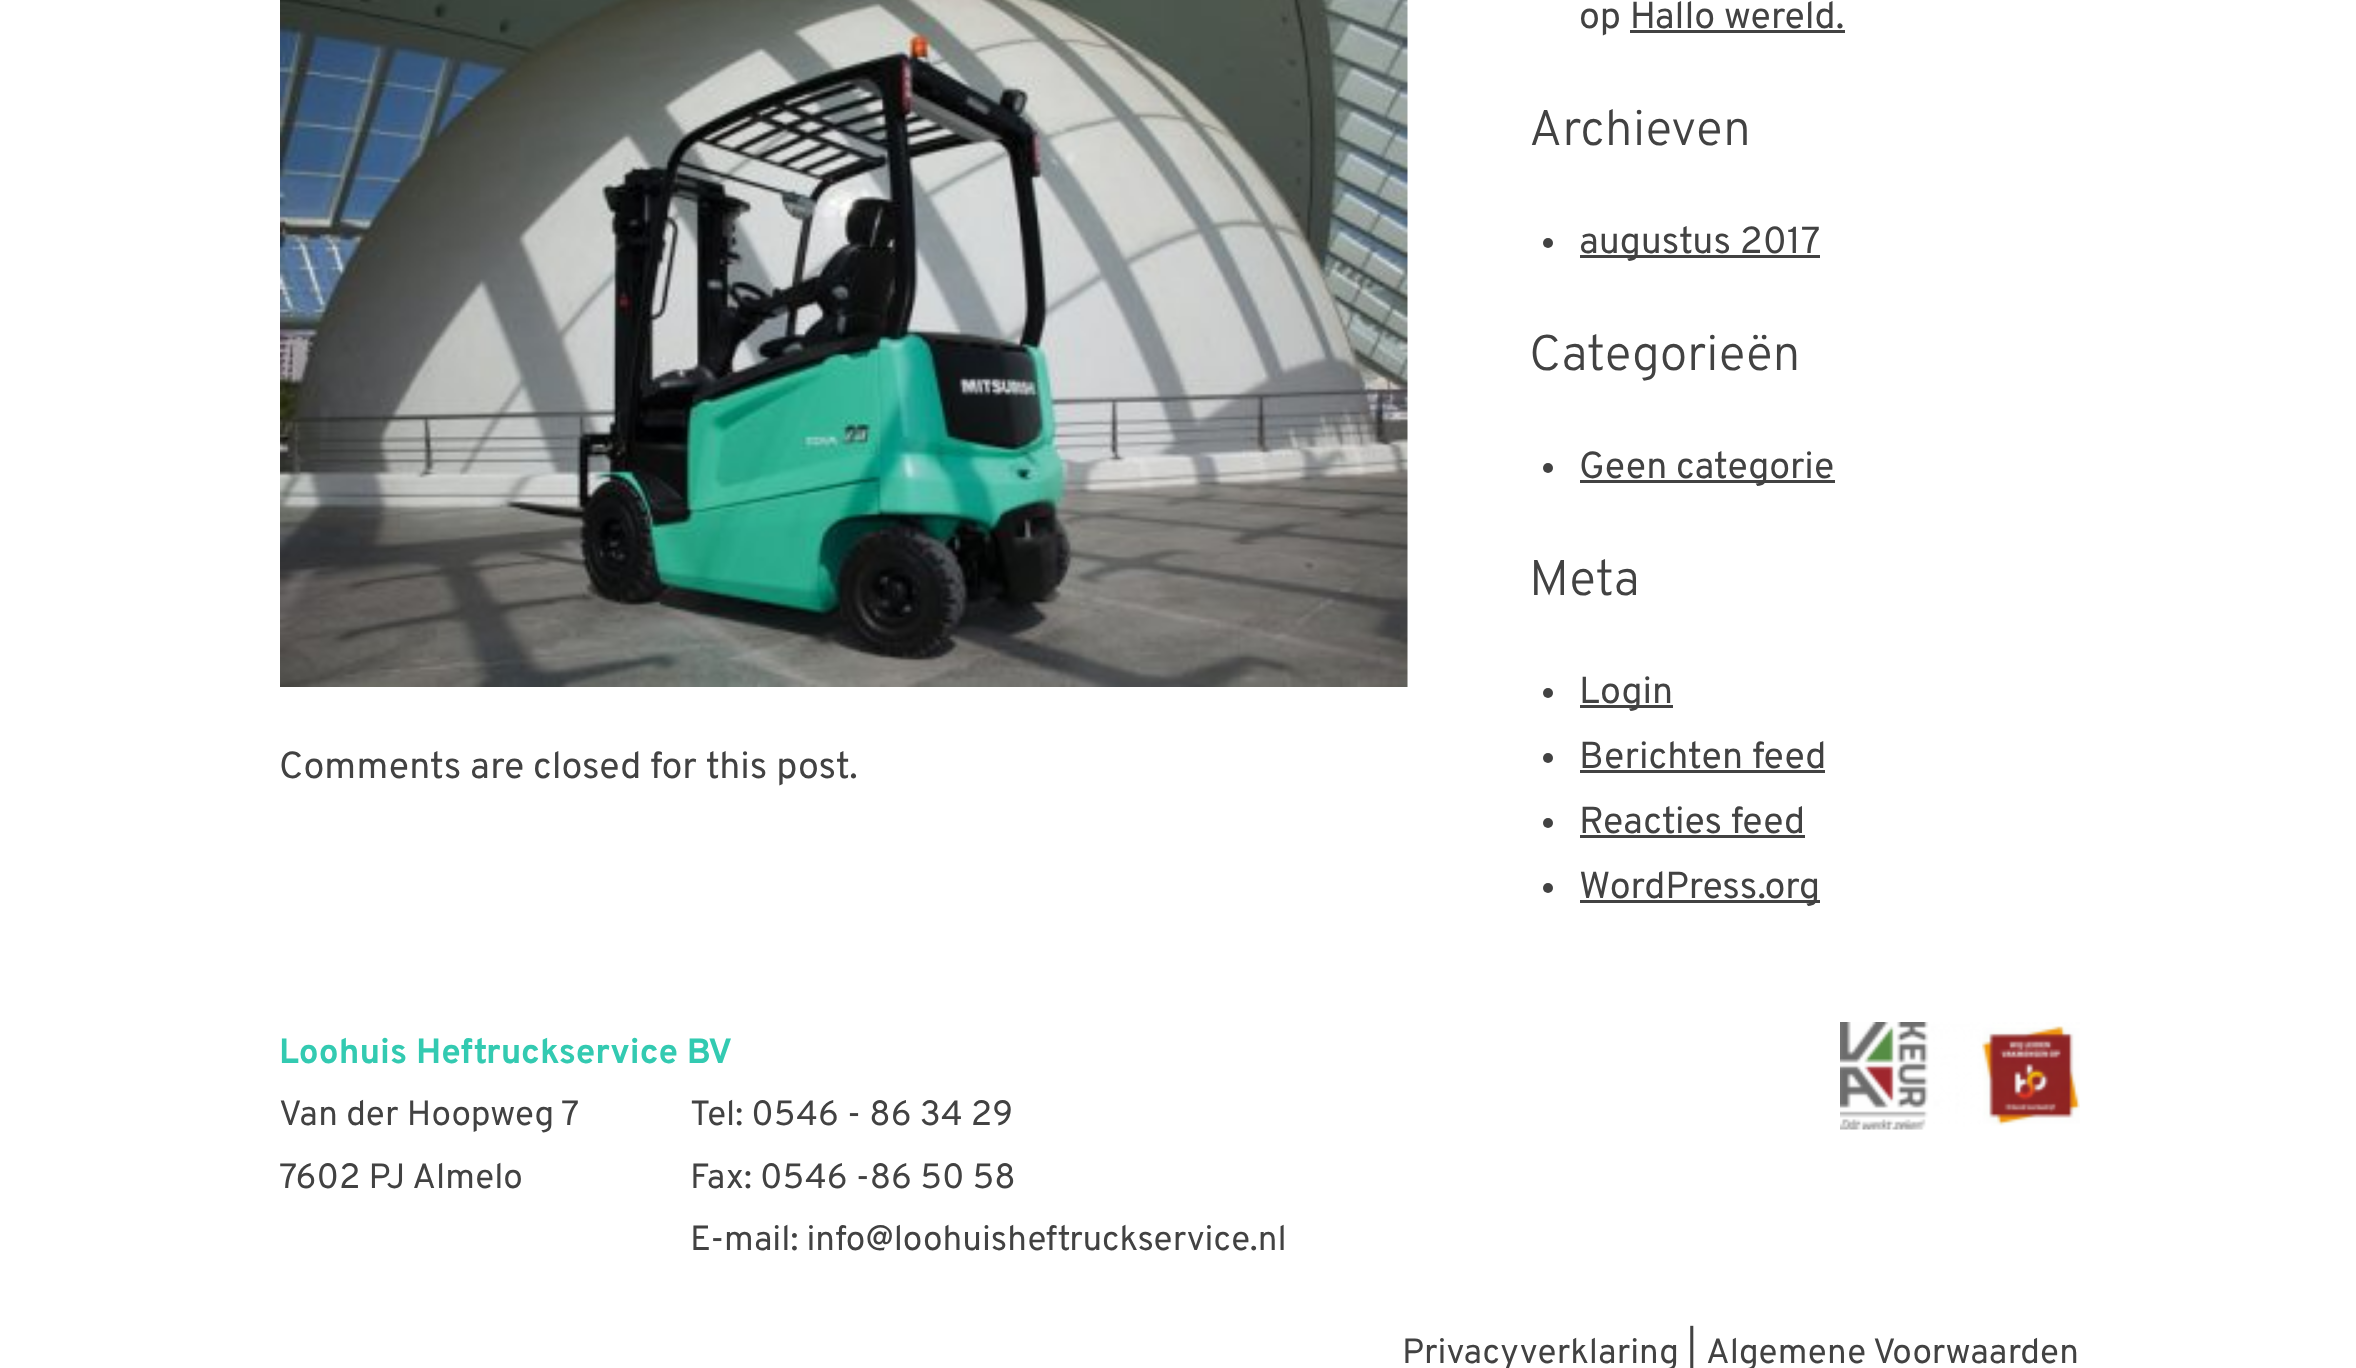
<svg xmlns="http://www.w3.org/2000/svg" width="2356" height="1368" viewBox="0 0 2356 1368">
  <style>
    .t1 { font: 37.5px Overpass; fill: #424242; }
    .t2 { font: 300 50px Overpass; fill: #424242; }
    .t3 { font: bold 35px Overpass; fill: #33cab1; }
    .t4 { font: 35px Overpass; fill: #424242; }
  </style>
  <rect width="100%" height="100%" fill="#fff"/>
  <image x="280" y="0" width="1128" height="687" href="images/1.png"/>
  <text x="279" y="778" class="t1">Comments are closed for this post.</text>
  <text x="1579" y="28" class="t1">op Hallo wereld.</text>
  <rect x="1630" y="30" width="215" height="3" fill="#424242"/>
  <text x="1529" y="145" class="t2">Archieven</text>
  <circle cx="1548" cy="243" r="5" fill="#424242"/>
  <rect x="1580" y="255" width="240" height="3" fill="#424242"/>
  <text x="1579" y="253" class="t1">augustus 2017</text>
  <text x="1529" y="370" class="t2">Categorieën</text>
  <circle cx="1548" cy="468" r="5" fill="#424242"/>
  <rect x="1580" y="480" width="255" height="3" fill="#424242"/>
  <text x="1579" y="478" class="t1">Geen categorie</text>
  <text x="1529" y="595" class="t2">Meta</text>
  <circle cx="1548" cy="693" r="5" fill="#424242"/>
  <rect x="1580" y="705" width="93" height="3" fill="#424242"/>
  <text x="1579" y="703" class="t1">Login</text>
  <circle cx="1548" cy="758" r="5" fill="#424242"/>
  <text x="1579" y="768" class="t1">Berichten feed</text>
  <rect x="1580" y="770" width="245" height="3" fill="#424242"/>
  <circle cx="1548" cy="823" r="5" fill="#424242"/>
  <text x="1579" y="833" class="t1">Reacties feed</text>
  <rect x="1580" y="835" width="225" height="3" fill="#424242"/>
  <circle cx="1548" cy="888" r="5" fill="#424242"/>
  <rect x="1580" y="900" width="240" height="3" fill="#424242"/>
  <text x="1579" y="898" class="t1">WordPress.org</text>
  <text x="279" y="1063" class="t3">Loohuis Heftruckservice BV</text>
  <text x="279" y="1125" class="t4">Van der Hoopweg 7</text>
  <text x="279" y="1188" class="t4">7602 PJ Almelo</text>
  <text x="690" y="1125" class="t4">Tel: 0546 - 86 34 29</text>
  <text x="690" y="1188" class="t4">Fax: 0546 -86 50 58</text>
  <text x="690" y="1250" class="t4">E-mail: info@loohuisheftruckservice.nl</text>
  <image x="1840" y="1022" width="240" height="108" href="images/2.png"/>
  <text x="1402" y="1363" class="t4">Privacyverklaring</text>
  <text x="1687" y="1363" class="t4">|</text>
  <text x="1706" y="1363" class="t4">Algemene Voorwaarden</text>
</svg>
